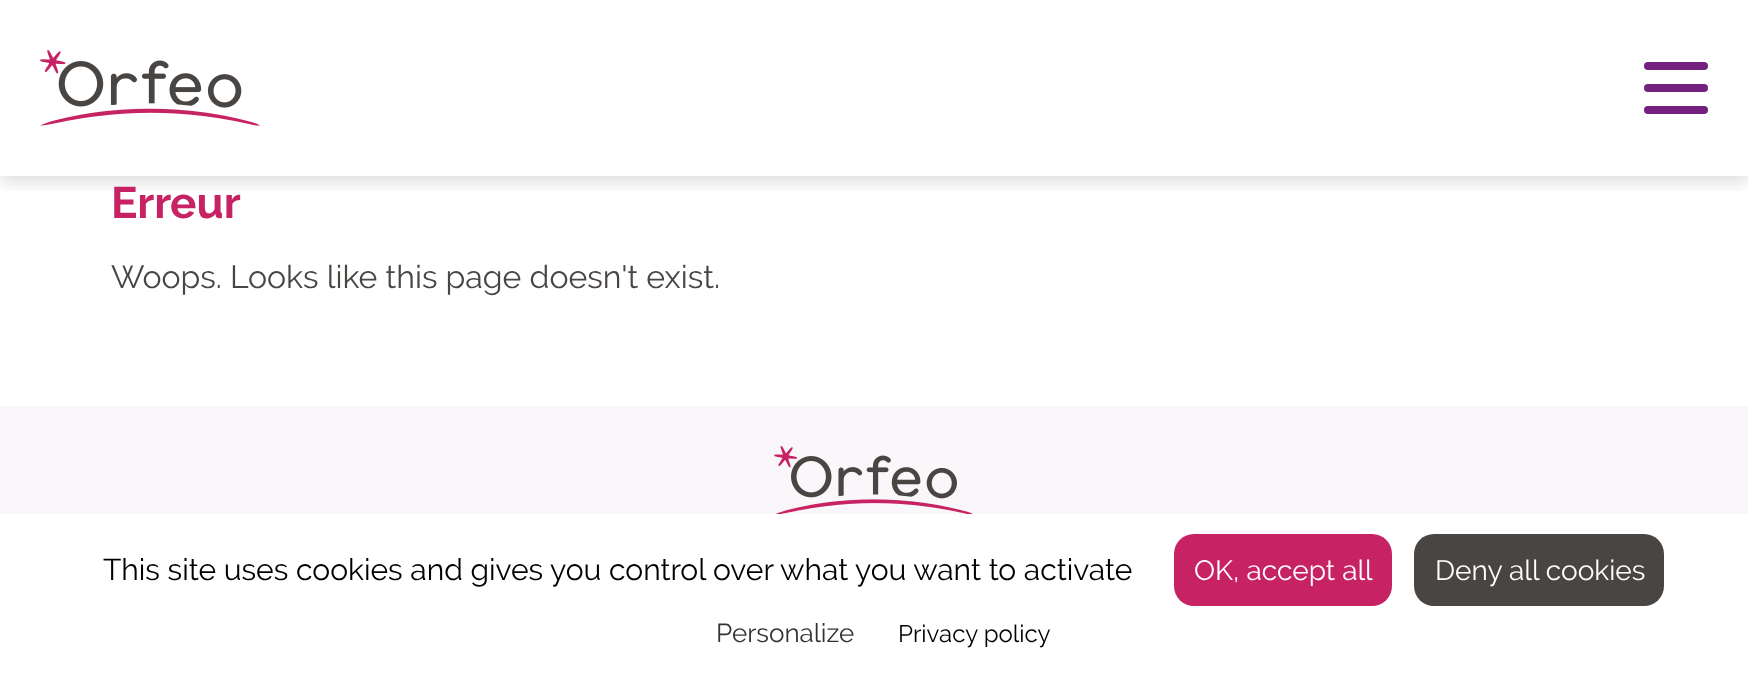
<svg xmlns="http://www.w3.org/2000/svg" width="1748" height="683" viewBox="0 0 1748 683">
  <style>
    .t1 { font: bold 44px Raleway; fill: #c72263; }
    .t2 { font: 32px Raleway; fill: #494543; }
    .t3 { font: 30px Raleway; fill: #000; }
    .t4 { font: 28px Raleway; fill: #fff; }
    .t5 { font: 26px Raleway; fill: #333; }
    .t6 { font: 24px Raleway; fill: #000; }
  </style>
  <defs>
    <clipPath id="clip1"><rect x="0" y="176" width="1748" height="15"/></clipPath>
  </defs>
  <rect width="100%" height="100%" fill="#fff"/>
  <g clip-path="url(#clip1)">
    <rect x="0" y="4" width="1748" height="176" fill="#00000029" filter="blur(10px)"/>
  </g>
  <image x="40" y="50" width="220" height="76" href="images/1.png"/>
  <rect x="1644" y="62" width="64" height="8" rx="4" fill="#74207f"/>
  <rect x="1644" y="84" width="64" height="8" rx="4" fill="#74207f"/>
  <rect x="1644" y="106" width="64" height="8" rx="4" fill="#74207f"/>
  <text x="111" y="218" class="t1">Erreur</text>
  <text x="111" y="288" class="t2">Woops. Looks like this page doesn't exist.</text>
  <rect x="0" y="406" width="1748" height="108" fill="#f9f7f9"/>
  <image x="774" y="446" width="199" height="68" href="images/2.png"/>
  <text x="103" y="580" class="t3">This site uses cookies and gives you control over what you want to activate</text>
  <rect x="1174" y="534" width="218" height="72" rx="20" fill="#c72263"/>
  <text x="1194" y="580" class="t4">OK, accept all</text>
  <rect x="1414" y="534" width="250" height="72" rx="20" fill="#494543"/>
  <text x="1435" y="580" class="t4">Deny all cookies</text>
  <text x="716" y="642" class="t5">Personalize</text>
  <text x="898" y="642" class="t6">Privacy policy</text>
</svg>
